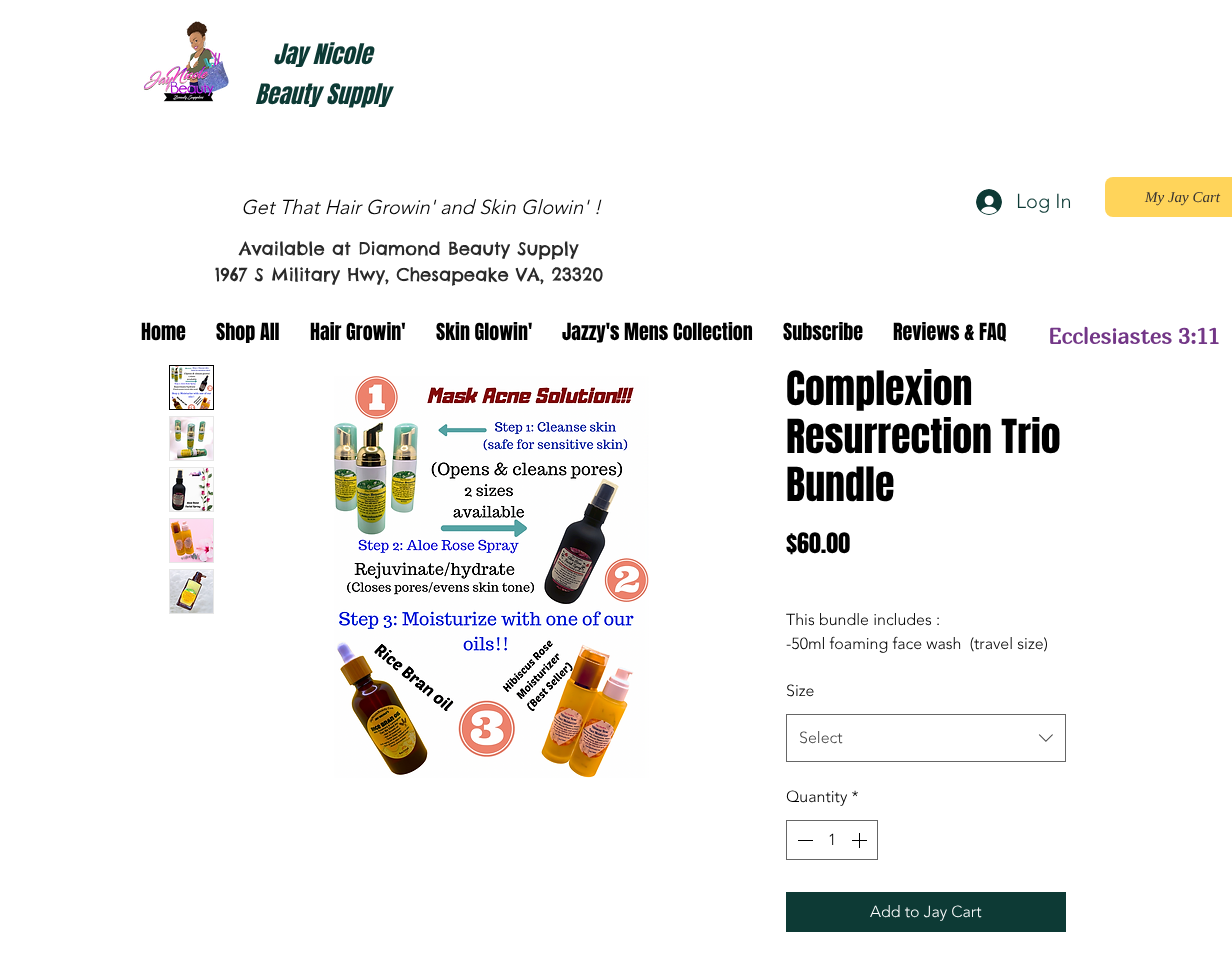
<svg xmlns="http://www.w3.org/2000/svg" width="1232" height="969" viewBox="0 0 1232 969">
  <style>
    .t1 { font: italic 24px Anton; fill: #0d3a35; }
    .t2 { font: italic 300 20px 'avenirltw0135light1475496'; fill: #000; }
    .t3 { font: 300 20px 'avenirltw0135light1475496'; fill: #0d3a35; }
    .t4 { font: italic 15px Liberation Serif; fill: #353131; }
    .t5 { font: 18px Chelsea Market; fill: #292929; }
    .t6 { font: 20px Anton; fill: #000; }
    .t7 { font: bold 22px Marmelad; fill: #733787; }
    .t8 { font: 40px Anton; fill: #000; }
    .t9 { font: 24px Anton; fill: #000; }
    .t10 { font: 300 16px 'avenirltw0135light1475496'; fill: #000; }
    .t11 { font: 300 16px 'avenirltw0135light1475496'; fill: #444; }
    .t12 { font: 300 16px 'avenirltw0135light1475496'; fill: #fff; }
  </style>
  <rect width="100%" height="100%" fill="#fff"/>
  <image x="143" y="21" width="86" height="81" href="images/1.png"/>
  <text x="273" y="64" class="t1">Jay Nicole</text>
  <text x="255" y="104" class="t1">Beauty Supply</text>
  <text x="241" y="214" class="t2">Get That Hair Growin' and Skin Glowin' !</text>
  <image x="976" y="189" width="26" height="26" href="images/2.png"/>
  <text x="1016" y="208" class="t3">Log In</text>
  <rect x="1105" y="177" width="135" height="40" rx="8" fill="#ffd45a"/>
  <text x="1145" y="202" class="t4">My Jay Cart</text>
  <text x="239" y="255" class="t5">Available at Diamond Beauty Supply</text>
  <text x="215" y="281" class="t5">1967 S Military Hwy, Chesapeake VA, 23320</text>
  <text x="141" y="340" class="t6">Home</text>
  <text x="216" y="340" class="t6">Shop All</text>
  <text x="310" y="340" class="t6">Hair Growin'</text>
  <text x="436" y="340" class="t6">Skin Glowin'</text>
  <text x="562" y="340" class="t6">Jazzy's Mens Collection</text>
  <text x="783" y="340" class="t6">Subscribe</text>
  <text x="893" y="340" class="t6">Reviews &amp; FAQ</text>
  <text x="1048" y="344" class="t7">Ecclesiastes 3:11</text>
  <rect x="169.5" y="365.5" width="44" height="44" fill="none" stroke="#000"/>
  <image x="171" y="366" width="42" height="43" href="images/3.png"/>
  <rect x="169.5" y="416.5" width="44" height="44" fill="none" stroke="#e6e6e6"/>
  <image x="170" y="417" width="43" height="43" href="images/4.png"/>
  <rect x="169.5" y="467.5" width="44" height="44" fill="none" stroke="#e6e6e6"/>
  <image x="170" y="468" width="43" height="43" href="images/5.png"/>
  <rect x="169.5" y="518.5" width="44" height="44" fill="none" stroke="#e6e6e6"/>
  <image x="170" y="519" width="43" height="43" href="images/6.png"/>
  <rect x="169.5" y="569.5" width="44" height="44" fill="none" stroke="#e6e6e6"/>
  <image x="170" y="570" width="43" height="43" href="images/7.png"/>
  <image x="334" y="376" width="315" height="402" href="images/8.png"/>
  <text x="786" y="405" class="t8">Complexion</text>
  <text x="786" y="453" class="t8">Resurrection Trio</text>
  <text x="786" y="501" class="t8">Bundle</text>
  <text x="786" y="553" class="t9">$60.00</text>
  <text x="786" y="625" class="t10">This bundle includes :</text>
  <text x="786" y="649" class="t10" xml:space="preserve">-50ml foaming face wash  (travel size)</text>
  <text x="786" y="696" class="t10">Size</text>
  <rect x="786.5" y="714.5" width="279" height="47" fill="none" stroke="#666"/>
  <text x="799" y="743" class="t11">Select</text>
  <image x="1038" y="734" width="15" height="8" href="images/9.png"/>
  <text x="786" y="802" class="t10">Quantity *</text>
  <rect x="786.5" y="820.5" width="91" height="39" fill="none" stroke="#666"/>
  <rect x="798" y="840" width="15" height="1" fill="#000"/>
  <text x="828" y="845" class="t10">1</text>
  <image x="852" y="833" width="15" height="15" href="images/10.png"/>
  <rect x="786" y="892" width="280" height="40" fill="#0d3a35"/>
  <text x="870" y="917" class="t12">Add to Jay Cart</text>
</svg>
